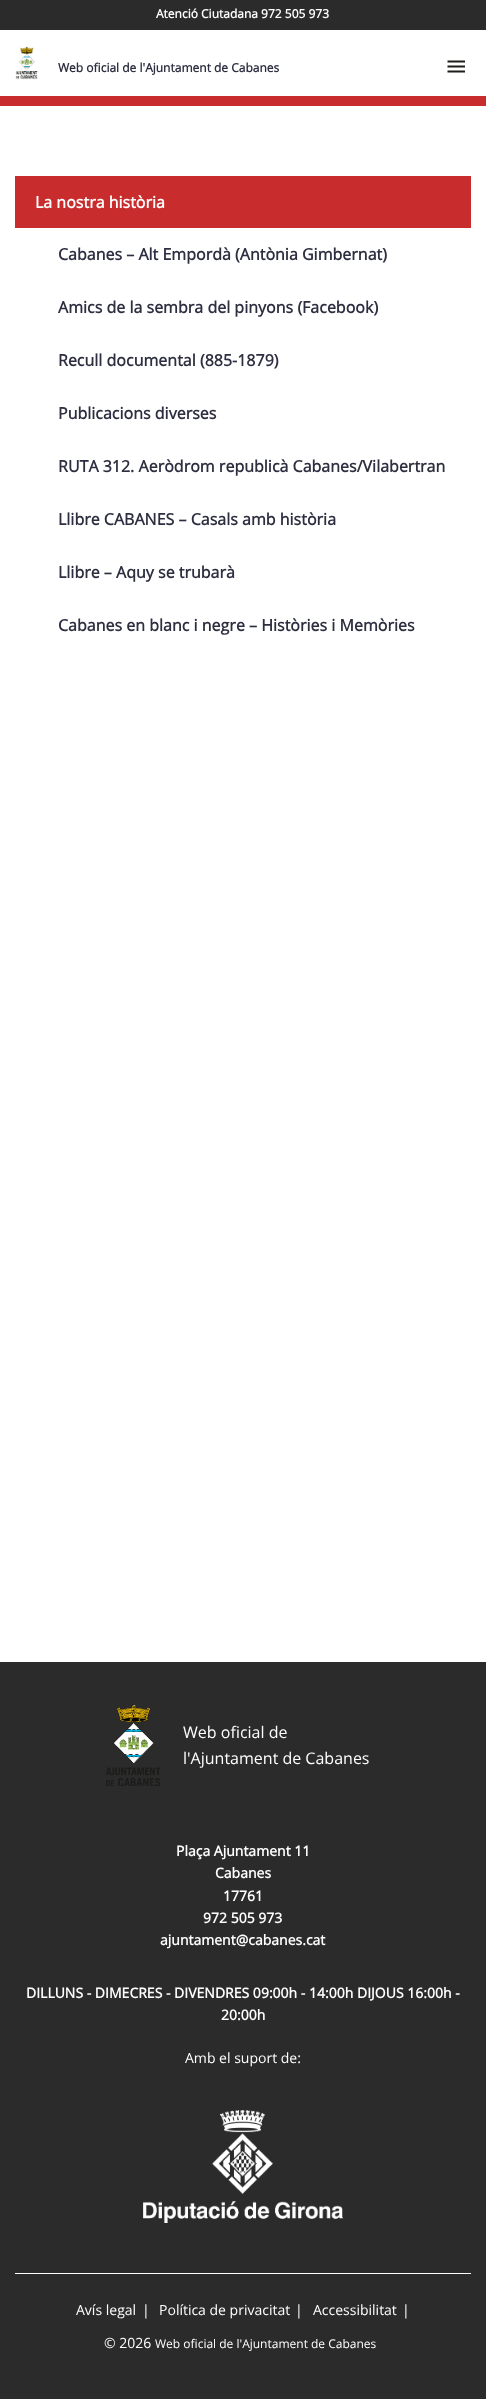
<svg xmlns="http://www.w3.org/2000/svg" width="486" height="2399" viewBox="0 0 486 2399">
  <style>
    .t1 { font: bold 12px Open Sans; fill: #fff; }
    .t2 { font: bold 12px Open Sans; fill: #2d2e40; }
    .t3 { font: bold 16px Open Sans; fill: #fff; }
    .t4 { font: bold 16px Open Sans; fill: #2d2e40; }
    .t5 { font: 16px Open Sans; fill: #fff; }
    .t6 { font: bold 14px Open Sans; fill: #fff; }
    .t7 { font: 14px Open Sans; fill: #fff; }
    .t8 { font: 12px Open Sans; fill: #fff; }
  </style>
  <rect width="100%" height="100%" fill="#fff"/>
  <rect x="0" y="96" width="486" height="10" fill="#c92c2c"/>
  <rect x="0" y="0" width="486" height="30" fill="#2b2b2b"/>
  <text x="156" y="18" class="t1">Atenció Ciutadana 972 505 973</text>
  <image x="15" y="46" width="23" height="34" href="images/1.png"/>
  <text x="58" y="72" class="t2">Web oficial de l'Ajuntament de Cabanes</text>
  <path d="M447.5 61.5H465M447.5 66.5H465M447.5 71.5H465" fill="none" stroke="#1d1d1b" stroke-width="2"/>
  <rect x="15" y="176" width="456" height="52" fill="#c92c2c"/>
  <text x="35" y="208" class="t3">La nostra història</text>
  <text x="58" y="260" class="t4">Cabanes – Alt Empordà (Antònia Gimbernat)</text>
  <text x="58" y="313" class="t4">Amics de la sembra del pinyons (Facebook)</text>
  <text x="58" y="366" class="t4">Recull documental (885-1879)</text>
  <text x="58" y="419" class="t4">Publicacions diverses</text>
  <text x="58" y="472" class="t4">RUTA 312. Aeròdrom republicà Cabanes/Vilabertran</text>
  <text x="58" y="525" class="t4">Llibre CABANES – Casals amb història</text>
  <text x="58" y="578" class="t4">Llibre – Aquy se trubarà</text>
  <text x="58" y="631" class="t4">Cabanes en blanc i negre – Històries i Memòries</text>
  <rect x="0" y="1662" width="486" height="737" fill="#2b2b2b"/>
  <image x="106" y="1704" width="55" height="82" href="images/2.png"/>
  <text x="183" y="1738" class="t5">Web oficial de</text>
  <text x="183" y="1764" class="t5">l'Ajuntament de Cabanes</text>
  <text x="176" y="1856" class="t6">Plaça Ajuntament 11</text>
  <text x="215" y="1878" class="t6">Cabanes</text>
  <text x="223" y="1901" class="t6">17761</text>
  <text x="203" y="1923" class="t6">972 505 973</text>
  <text x="160" y="1945" class="t6">ajuntament@cabanes.cat</text>
  <text x="26" y="1998" class="t6">DILLUNS - DIMECRES - DIVENDRES 09:00h - 14:00h DIJOUS 16:00h -</text>
  <text x="221" y="2020" class="t6">20:00h</text>
  <text x="185" y="2063" class="t7">Amb el suport de:</text>
  <image x="143" y="2110" width="200" height="113" href="images/3.png"/>
  <rect x="15" y="2273" width="456" height="1" fill="#fff"/>
  <text x="76" y="2315" class="t7">Avís legal</text>
  <text x="142" y="2315" class="t7">|</text>
  <text x="159" y="2315" class="t7">Política de privacitat</text>
  <text x="295" y="2315" class="t7">|</text>
  <text x="313" y="2315" class="t7">Accessibilitat</text>
  <text x="402" y="2315" class="t7">|</text>
  <text x="104" y="2348" class="t7">© 2026</text>
  <text x="155" y="2348" class="t8">Web oficial de l'Ajuntament de Cabanes</text>
</svg>
